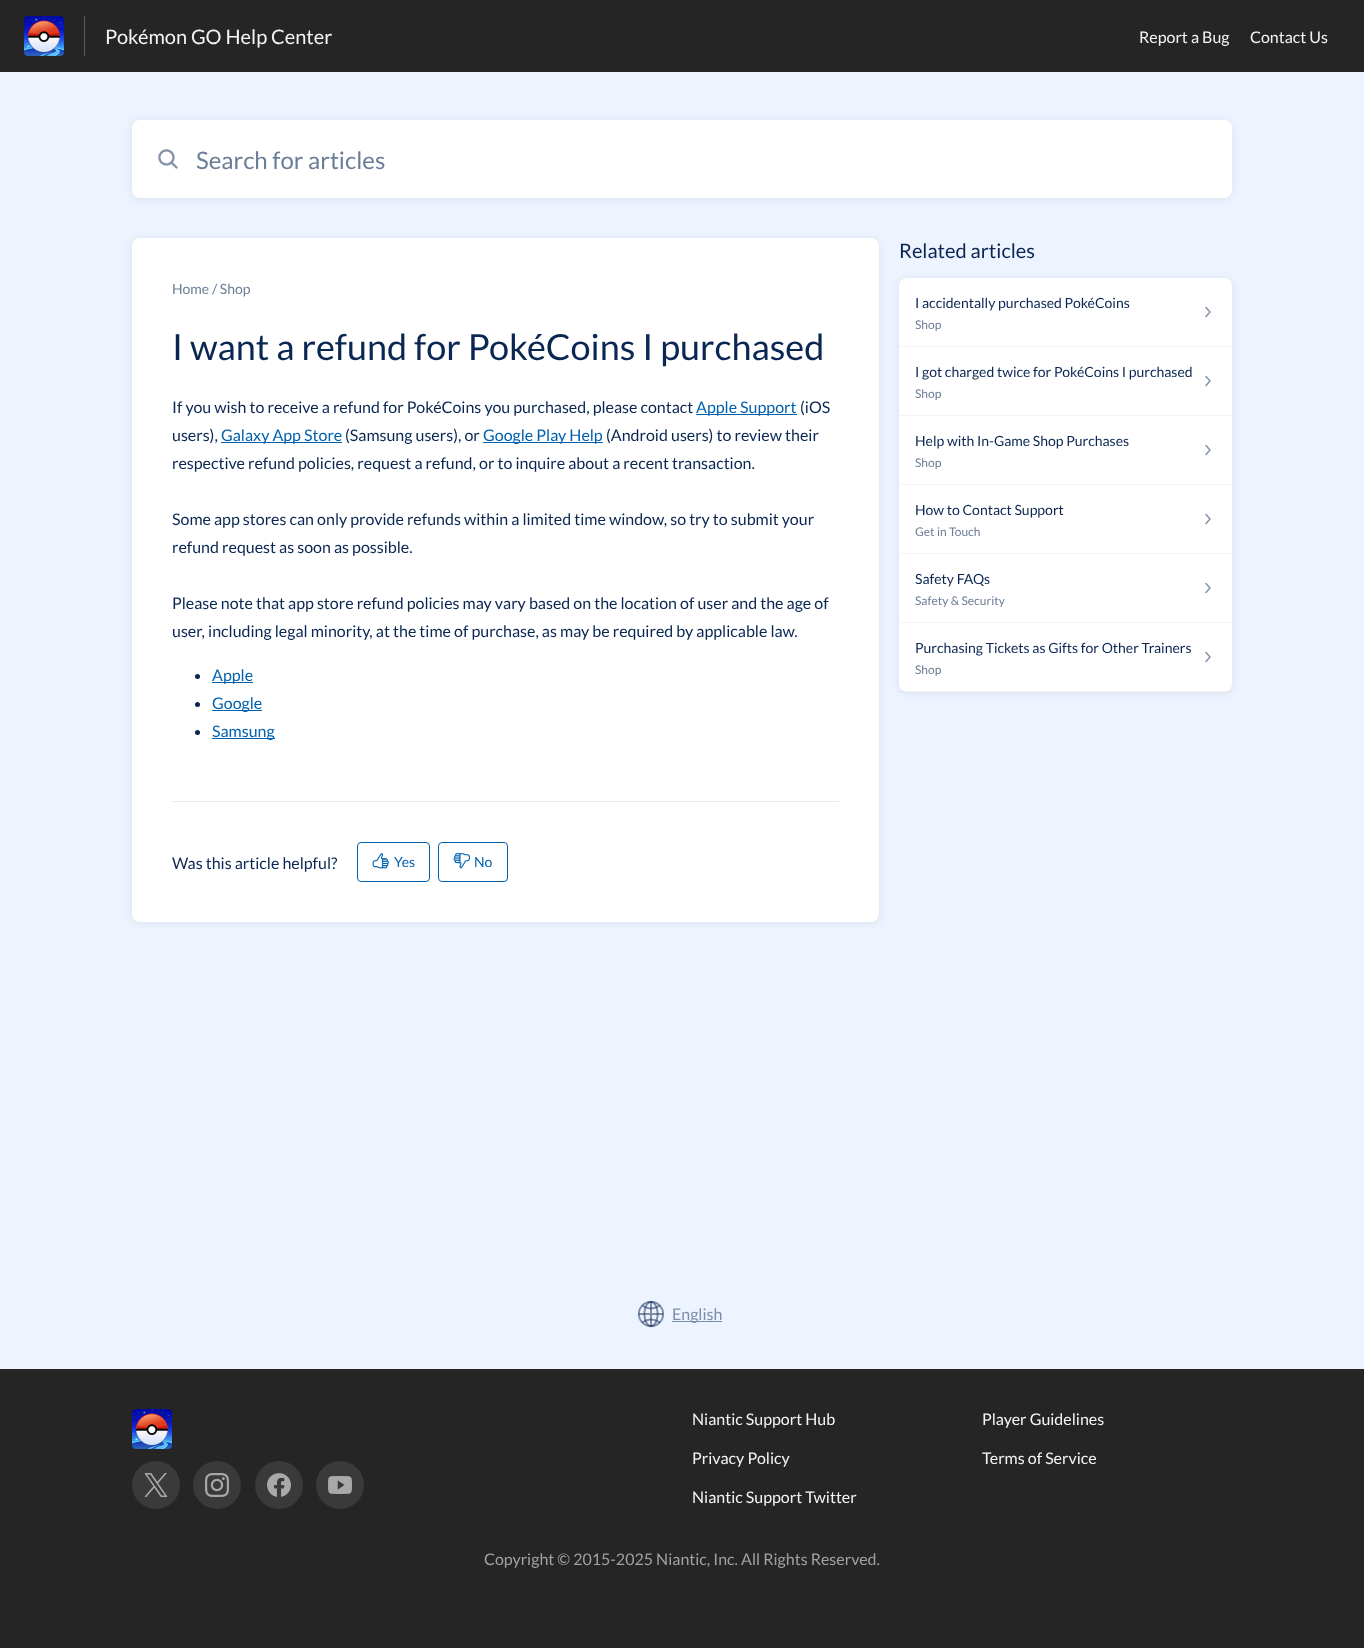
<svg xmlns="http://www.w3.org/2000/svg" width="1364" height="1648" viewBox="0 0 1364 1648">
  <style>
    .t1 { font: 20px Lato; fill: #f3f4f4; }
    .t2 { font: 16px Lato; fill: #f3f4f4; }
    .t3 { font: 24px Lato; fill: #6c7d97; }
    .t4 { font: 14px Lato; fill: #6c7d97; }
    .t5 { font: 36px Lato; fill: #0a2652; }
    .t6 { font: 16px Lato; fill: #0a2652; }
    .t7 { font: 16px Lato; fill: #0061af; }
    .t8 { font: 14px Lato; fill: #0061af; }
    .t9 { font: 20px Lato; fill: #0a2652; }
    .t10 { font: 14px Lato; fill: #0a2652; }
    .t11 { font: 12px Lato; fill: #6c7d97; }
    .t12 { font: 16px Lato; fill: #7c8da9; }
    .t13 { font: 16px Lato; fill: #a1a1a1; }
  </style>
  <rect width="100%" height="100%" fill="#eef4ff"/>
  <rect x="0" y="0" width="1364" height="72" fill="#252525"/>
  <rect x="84" y="16" width="1" height="40" fill="#595959"/>
  <image x="24" y="16" width="40" height="40" href="images/1.png"/>
  <text x="105" y="44" class="t1">Pokémon GO Help Center</text>
  <text x="1139" y="43" class="t2">Report a Bug</text>
  <text x="1250" y="43" class="t2">Contact Us</text>
  <rect x="132" y="121" width="1100" height="78" rx="8" fill="#00000014" filter="blur(4px)"/>
  <rect x="132" y="120" width="1100" height="78" rx="8" fill="#fff"/>
  <image x="158" y="149" width="20" height="20" href="images/2.png"/>
  <text x="196" y="169" class="t3">Search for articles</text>
  <rect x="132" y="239" width="747" height="684" rx="8" fill="#00000014" filter="blur(4px)"/>
  <rect x="132" y="238" width="747" height="684" rx="8" fill="#fff"/>
  <text x="172" y="294" class="t4">Home / Shop</text>
  <text x="172" y="360" class="t5">I want a refund for PokéCoins I purchased</text>
  <rect x="172" y="801" width="667" height="1" fill="#e7e9ee"/>
  <text x="172" y="413" class="t6">If you wish to receive a refund for PokéCoins you purchased, please contact</text>
  <rect x="696" y="414" width="101" height="1" fill="#0061af"/>
  <text x="696" y="413" class="t7">Apple Support</text>
  <text x="800" y="413" class="t6">(iOS</text>
  <text x="172" y="441" class="t6">users),</text>
  <rect x="221" y="442" width="121" height="1" fill="#0061af"/>
  <text x="221" y="441" class="t7">Galaxy App Store</text>
  <text x="345" y="441" class="t6">(Samsung users), or</text>
  <rect x="483" y="442" width="120" height="1" fill="#0061af"/>
  <text x="483" y="441" class="t7">Google Play Help</text>
  <text x="606" y="441" class="t6">(Android users) to review their</text>
  <text x="172" y="469" class="t6">respective refund policies, request a refund, or to inquire about a recent transaction.</text>
  <text x="172" y="525" class="t6">Some app stores can only provide refunds within a limited time window, so try to submit your</text>
  <text x="172" y="553" class="t6">refund request as soon as possible.</text>
  <text x="172" y="609" class="t6">Please note that app store refund policies may vary based on the location of user and the age of</text>
  <text x="172" y="637" class="t6">user, including legal minority, at the time of purchase, as may be required by applicable law.</text>
  <circle cx="197.5" cy="676.5" r="2.5" fill="#0a2652"/>
  <rect x="212" y="682" width="41" height="1" fill="#0061af"/>
  <text x="212" y="681" class="t7">Apple</text>
  <circle cx="197.5" cy="704.5" r="2.5" fill="#0a2652"/>
  <rect x="212" y="710" width="50" height="1" fill="#0061af"/>
  <text x="212" y="709" class="t7">Google</text>
  <circle cx="197.5" cy="732.5" r="2.5" fill="#0a2652"/>
  <rect x="212" y="738" width="63" height="1" fill="#0061af"/>
  <text x="212" y="737" class="t7">Samsung</text>
  <text x="172" y="869" class="t6">Was this article helpful?</text>
  <rect x="357.5" y="842.5" width="72" height="39" rx="3.5" fill="none" stroke="#0061af"/>
  <image x="372" y="853" width="17" height="16" href="images/3.png"/>
  <text x="394" y="867" class="t8">Yes</text>
  <rect x="438.5" y="842.5" width="69" height="39" rx="3.5" fill="none" stroke="#0061af"/>
  <image x="453" y="853" width="17" height="16" href="images/4.png"/>
  <text x="474" y="867" class="t8">No</text>
  <text x="899" y="258" class="t9">Related articles</text>
  <rect x="899" y="279" width="333" height="414" rx="8" fill="#00000014" filter="blur(4px)"/>
  <rect x="899" y="278" width="333" height="414" rx="8" fill="#fff"/>
  <rect x="899" y="346" width="333" height="1" fill="#f3f4f6"/>
  <text x="915" y="308" class="t10">I accidentally purchased PokéCoins</text>
  <text x="915" y="329" class="t11">Shop</text>
  <path d="M1206 307.5L1210 312L1206 316.5" fill="none" stroke="#8593a9" stroke-width="1.5" stroke-linecap="round" stroke-linejoin="round"/>
  <rect x="899" y="415" width="333" height="1" fill="#f3f4f6"/>
  <text x="915" y="377" class="t10">I got charged twice for PokéCoins I purchased</text>
  <text x="915" y="398" class="t11">Shop</text>
  <path d="M1206 376.5L1210 381L1206 385.5" fill="none" stroke="#8593a9" stroke-width="1.5" stroke-linecap="round" stroke-linejoin="round"/>
  <rect x="899" y="484" width="333" height="1" fill="#f3f4f6"/>
  <text x="915" y="446" class="t10">Help with In-Game Shop Purchases</text>
  <text x="915" y="467" class="t11">Shop</text>
  <path d="M1206 445.5L1210 450L1206 454.5" fill="none" stroke="#8593a9" stroke-width="1.5" stroke-linecap="round" stroke-linejoin="round"/>
  <rect x="899" y="553" width="333" height="1" fill="#f3f4f6"/>
  <text x="915" y="515" class="t10">How to Contact Support</text>
  <text x="915" y="536" class="t11">Get in Touch</text>
  <path d="M1206 514.5L1210 519L1206 523.5" fill="none" stroke="#8593a9" stroke-width="1.5" stroke-linecap="round" stroke-linejoin="round"/>
  <rect x="899" y="622" width="333" height="1" fill="#f3f4f6"/>
  <text x="915" y="584" class="t10">Safety FAQs</text>
  <text x="915" y="605" class="t11">Safety &amp; Security</text>
  <path d="M1206 583.5L1210 588L1206 592.5" fill="none" stroke="#8593a9" stroke-width="1.5" stroke-linecap="round" stroke-linejoin="round"/>
  <rect x="899" y="691" width="333" height="1" fill="#0a26520d"/>
  <text x="915" y="653" class="t10">Purchasing Tickets as Gifts for Other Trainers</text>
  <text x="915" y="674" class="t11">Shop</text>
  <path d="M1206 652.5L1210 657L1206 661.5" fill="none" stroke="#8593a9" stroke-width="1.5" stroke-linecap="round" stroke-linejoin="round"/>
  <image x="637" y="1300" width="28" height="28" href="images/5.png"/>
  <rect x="672" y="1321" width="50" height="1" fill="#7c8da9"/>
  <text x="672" y="1320" class="t12">English</text>
  <rect x="0" y="1369" width="1364" height="279" fill="#252525"/>
  <image x="132" y="1409" width="40" height="40" href="images/1.png"/>
  <circle cx="156" cy="1485" r="24" fill="#3a3a3a"/>
  <image x="144" y="1473" width="24" height="24" href="images/6.png"/>
  <circle cx="217" cy="1485" r="24" fill="#3a3a3a"/>
  <image x="205" y="1473" width="24" height="24" href="images/7.png"/>
  <circle cx="279" cy="1485" r="24" fill="#3a3a3a"/>
  <image x="267" y="1473" width="24" height="24" href="images/8.png"/>
  <circle cx="340" cy="1485" r="24" fill="#3a3a3a"/>
  <image x="328" y="1476" width="24" height="18" href="images/9.png"/>
  <text x="692" y="1425" class="t2">Niantic Support Hub</text>
  <text x="982" y="1425" class="t2">Player Guidelines</text>
  <text x="692" y="1464" class="t2">Privacy Policy</text>
  <text x="982" y="1464" class="t2">Terms of Service</text>
  <text x="692" y="1503" class="t2">Niantic Support Twitter</text>
  <text x="484" y="1565" class="t13">Copyright © 2015-2025 Niantic, Inc. All Rights Reserved.</text>
</svg>
